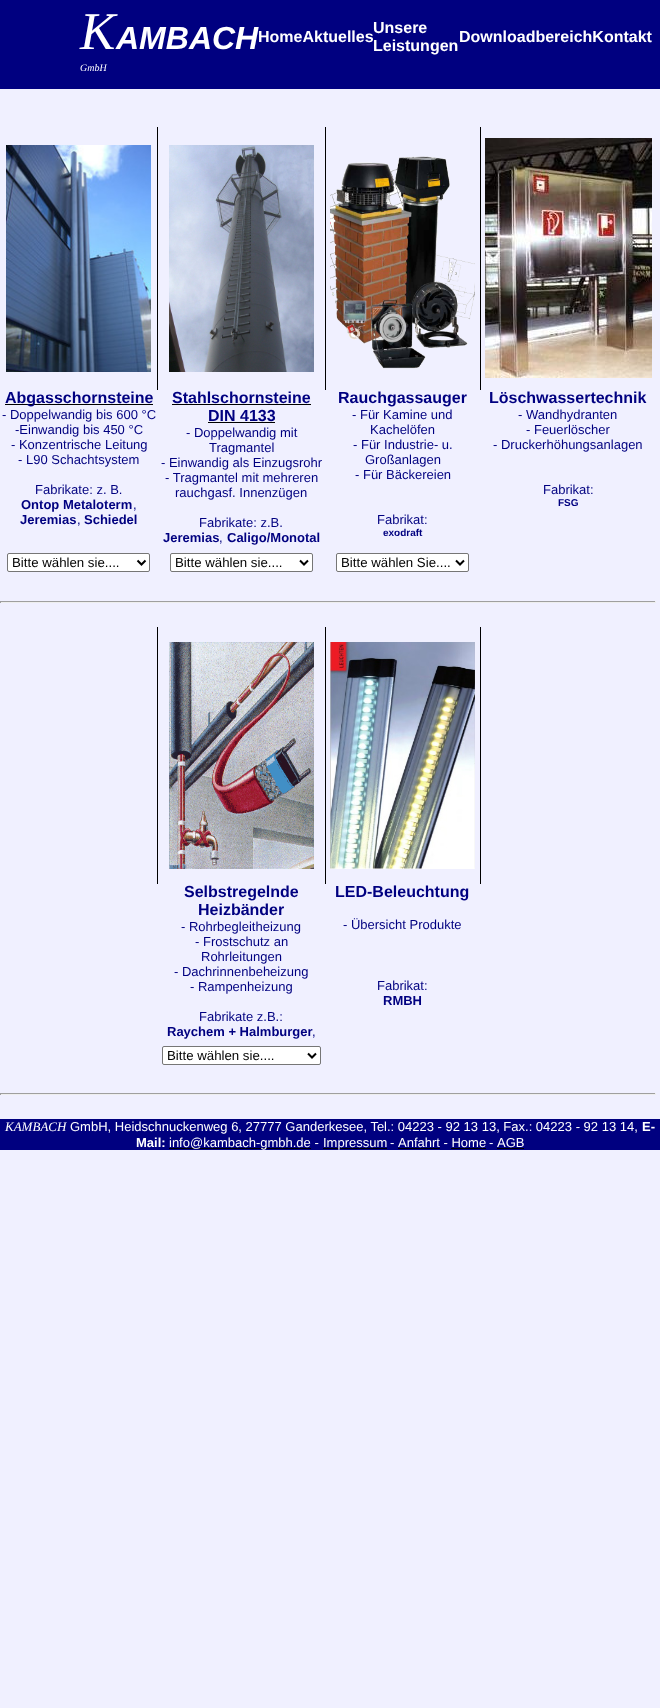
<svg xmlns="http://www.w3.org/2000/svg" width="660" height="1708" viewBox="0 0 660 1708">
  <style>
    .t1 { font: italic 53px Liberation Serif; fill: #fff; }
    .t2 { font: italic bold 32px Liberation Sans; fill: #fff; }
    .t3 { font: italic 10px Liberation Serif; fill: #fff; }
    .t4 { font: bold 16px Liberation Sans; fill: #fff; }
    .t5 { font: bold 16px Liberation Sans; fill: #000080; }
    .t6 { font: 13px Liberation Sans; fill: #000080; }
    .t7 { font: bold 13px Liberation Sans; fill: #000080; }
    .t8 { font: bold 10px Liberation Sans; fill: #000080; }
    .t9 { font: 13.25px Liberation Sans; fill: #000; }
    .t10 { font: italic 13px Liberation Serif; fill: #fff; }
    .t11 { font: 13px Liberation Sans; fill: #fff; }
    .t12 { font: bold 13px Liberation Sans; fill: #fff; }
  </style>
  <rect width="100%" height="100%" fill="#f0f0ff"/>
  <rect x="0" y="0" width="660" height="89" fill="#000080"/>
  <text x="80" y="49" class="t1">K</text>
  <text x="116" y="49" class="t2">AMBACH</text>
  <text x="80" y="71" class="t3">GmbH</text>
  <text x="258" y="42" class="t4">HomeAktuelles</text>
  <text x="373" y="33" class="t4">Unsere</text>
  <text x="373" y="51" class="t4">Leistungen</text>
  <text x="459" y="42" class="t4">DownloadbereichKontakt</text>
  <image x="6" y="145" width="145" height="227" href="images/1.png"/>
  <rect x="157" y="127" width="1" height="263" fill="#000"/>
  <image x="169" y="145" width="145" height="227" href="images/2.png"/>
  <rect x="325" y="127" width="1" height="263" fill="#000"/>
  <image x="330" y="156" width="145" height="213" href="images/3.png"/>
  <rect x="480" y="127" width="1" height="263" fill="#000"/>
  <image x="485" y="138" width="167" height="240" href="images/4.png"/>
  <rect x="5" y="404" width="148" height="1" fill="#000"/>
  <text x="5" y="403" class="t5">Abgasschornsteine</text>
  <text x="2" y="419" class="t6">- Doppelwandig bis 600 °C</text>
  <text x="15" y="434" class="t6">-Einwandig bis 450 °C</text>
  <text x="11" y="449" class="t6">- Konzentrische Leitung</text>
  <text x="18" y="464" class="t6">- L90 Schachtsystem</text>
  <text x="35" y="494" class="t6">Fabrikate: z. B.</text>
  <text x="21" y="509" class="t7">Ontop Metaloterm</text>
  <text x="133" y="509" class="t6">,</text>
  <text x="20" y="524" class="t7">Jeremias</text>
  <text x="77" y="524" class="t6">,</text>
  <text x="84" y="524" class="t7">Schiedel</text>
  <text x="172" y="403" class="t5">Stahlschornsteine</text>
  <rect x="172" y="404" width="139" height="1" fill="#000"/>
  <text x="208" y="421" class="t5">DIN 4133</text>
  <rect x="208" y="422" width="67" height="1" fill="#000"/>
  <text x="186" y="437" class="t6">- Doppelwandig mit</text>
  <text x="209" y="452" class="t6">Tragmantel</text>
  <text x="161" y="467" class="t6">- Einwandig als Einzugsrohr</text>
  <text x="165" y="482" class="t6">- Tragmantel mit mehreren</text>
  <text x="175" y="497" class="t6">rauchgasf. Innenzügen</text>
  <text x="199" y="527" class="t6">Fabrikate: z.B.</text>
  <text x="163" y="542" class="t7">Jeremias</text>
  <text x="219" y="542" class="t6">,</text>
  <text x="227" y="542" class="t7">Caligo/Monotal</text>
  <text x="338" y="403" class="t5">Rauchgassauger</text>
  <text x="352" y="419" class="t6">- Für Kamine und</text>
  <text x="370" y="434" class="t6">Kachelöfen</text>
  <text x="353" y="449" class="t6">- Für Industrie- u.</text>
  <text x="365" y="464" class="t6">Großanlagen</text>
  <text x="355" y="479" class="t6">- Für Bäckereien</text>
  <text x="377" y="524" class="t6">Fabrikat:</text>
  <text x="383" y="536" class="t8">exodraft</text>
  <text x="489" y="403" class="t5">Löschwassertechnik</text>
  <text x="518" y="419" class="t6">- Wandhydranten</text>
  <text x="526" y="434" class="t6">- Feuerlöscher</text>
  <text x="493" y="449" class="t6">- Druckerhöhungsanlagen</text>
  <text x="543" y="494" class="t6">Fabrikat:</text>
  <text x="558" y="506" class="t8">FSG</text>
  <rect x="7.5" y="553.5" width="142" height="18" rx="1.5" fill="#fff" stroke="#767676"/>
  <path d="M137.5 560.5L141.5 564.5L145.5 560.5" fill="none" stroke="#000" stroke-width="2"/>
  <text x="12" y="567" class="t9">Bitte wählen sie....</text>
  <rect x="170.5" y="553.5" width="142" height="18" rx="1.5" fill="#fff" stroke="#767676"/>
  <path d="M300 560.5L304 564.5L308 560.5" fill="none" stroke="#000" stroke-width="2"/>
  <text x="175" y="567" class="t9">Bitte wählen sie....</text>
  <rect x="336.5" y="553.5" width="132" height="18" rx="1.5" fill="#fff" stroke="#767676"/>
  <path d="M456 560.5L460 564.5L464 560.5" fill="none" stroke="#000" stroke-width="2"/>
  <text x="341" y="567" class="t9">Bitte wählen Sie....</text>
  <rect x="0" y="601" width="656" height="1" fill="#9f9f9f"/>
  <rect x="655" y="601" width="1" height="2" fill="#eee"/>
  <rect x="0" y="602" width="656" height="1" fill="#eee"/>
  <rect x="0" y="601" width="1" height="2" fill="#9f9f9f"/>
  <rect x="157" y="627" width="1" height="257" fill="#000"/>
  <image x="169" y="642" width="145" height="227" href="images/5.png"/>
  <rect x="325" y="627" width="1" height="257" fill="#000"/>
  <image x="330" y="642" width="145" height="227" href="images/6.png"/>
  <rect x="480" y="627" width="1" height="257" fill="#000"/>
  <text x="184" y="897" class="t5">Selbstregelnde</text>
  <text x="198" y="915" class="t5">Heizbänder</text>
  <text x="181" y="931" class="t6">- Rohrbegleitheizung</text>
  <text x="195" y="946" class="t6">- Frostschutz an</text>
  <text x="201" y="961" class="t6">Rohrleitungen</text>
  <text x="174" y="976" class="t6">- Dachrinnenbeheizung</text>
  <text x="190" y="991" class="t6">- Rampenheizung</text>
  <text x="199" y="1021" class="t6">Fabrikate z.B.:</text>
  <text x="167" y="1036" class="t7">Raychem + Halmburger</text>
  <text x="312" y="1036" class="t6">,</text>
  <text x="335" y="897" class="t5">LED-Beleuchtung</text>
  <text x="343" y="929" class="t6">- Übersicht Produkte</text>
  <text x="377" y="990" class="t6">Fabrikat:</text>
  <text x="383" y="1005" class="t7">RMBH</text>
  <rect x="162.5" y="1046.5" width="158" height="18" rx="1.5" fill="#fff" stroke="#767676"/>
  <path d="M308 1053.5L312 1057.5L316 1053.5" fill="none" stroke="#000" stroke-width="2"/>
  <text x="167" y="1060" class="t9">Bitte wählen sie....</text>
  <rect x="0" y="1093" width="656" height="1" fill="#9f9f9f"/>
  <rect x="655" y="1093" width="1" height="2" fill="#eee"/>
  <rect x="0" y="1094" width="656" height="1" fill="#eee"/>
  <rect x="0" y="1093" width="1" height="2" fill="#9f9f9f"/>
  <rect x="0" y="1119" width="660" height="31" fill="#000080"/>
  <text x="5" y="1131" class="t10">KAMBACH</text>
  <text x="70" y="1131" class="t11">GmbH, Heidschnuckenweg 6, 27777 Ganderkesee, Tel.: 04223 - 92 13 13, Fax.: 04223 - 92 13 14,</text>
  <text x="642" y="1131" class="t12">E-</text>
  <text x="136" y="1147" class="t12">Mail:</text>
  <rect x="169" y="1148" width="142" height="1" fill="#000"/>
  <text x="169" y="1147" class="t11">info@kambach-gmbh.de -</text>
  <rect x="323" y="1148" width="64" height="1" fill="#000"/>
  <text x="323" y="1147" class="t11">Impressum</text>
  <text x="390" y="1147" class="t11">-</text>
  <text x="398" y="1147" class="t11">Anfahrt - Home</text>
  <rect x="398" y="1148" width="42" height="1" fill="#000"/>
  <rect x="451" y="1148" width="35" height="1" fill="#000"/>
  <text x="489" y="1147" class="t11">-</text>
  <text x="497" y="1147" class="t11">AGB</text>
  <rect x="497" y="1148" width="27" height="1" fill="#000"/>
</svg>
